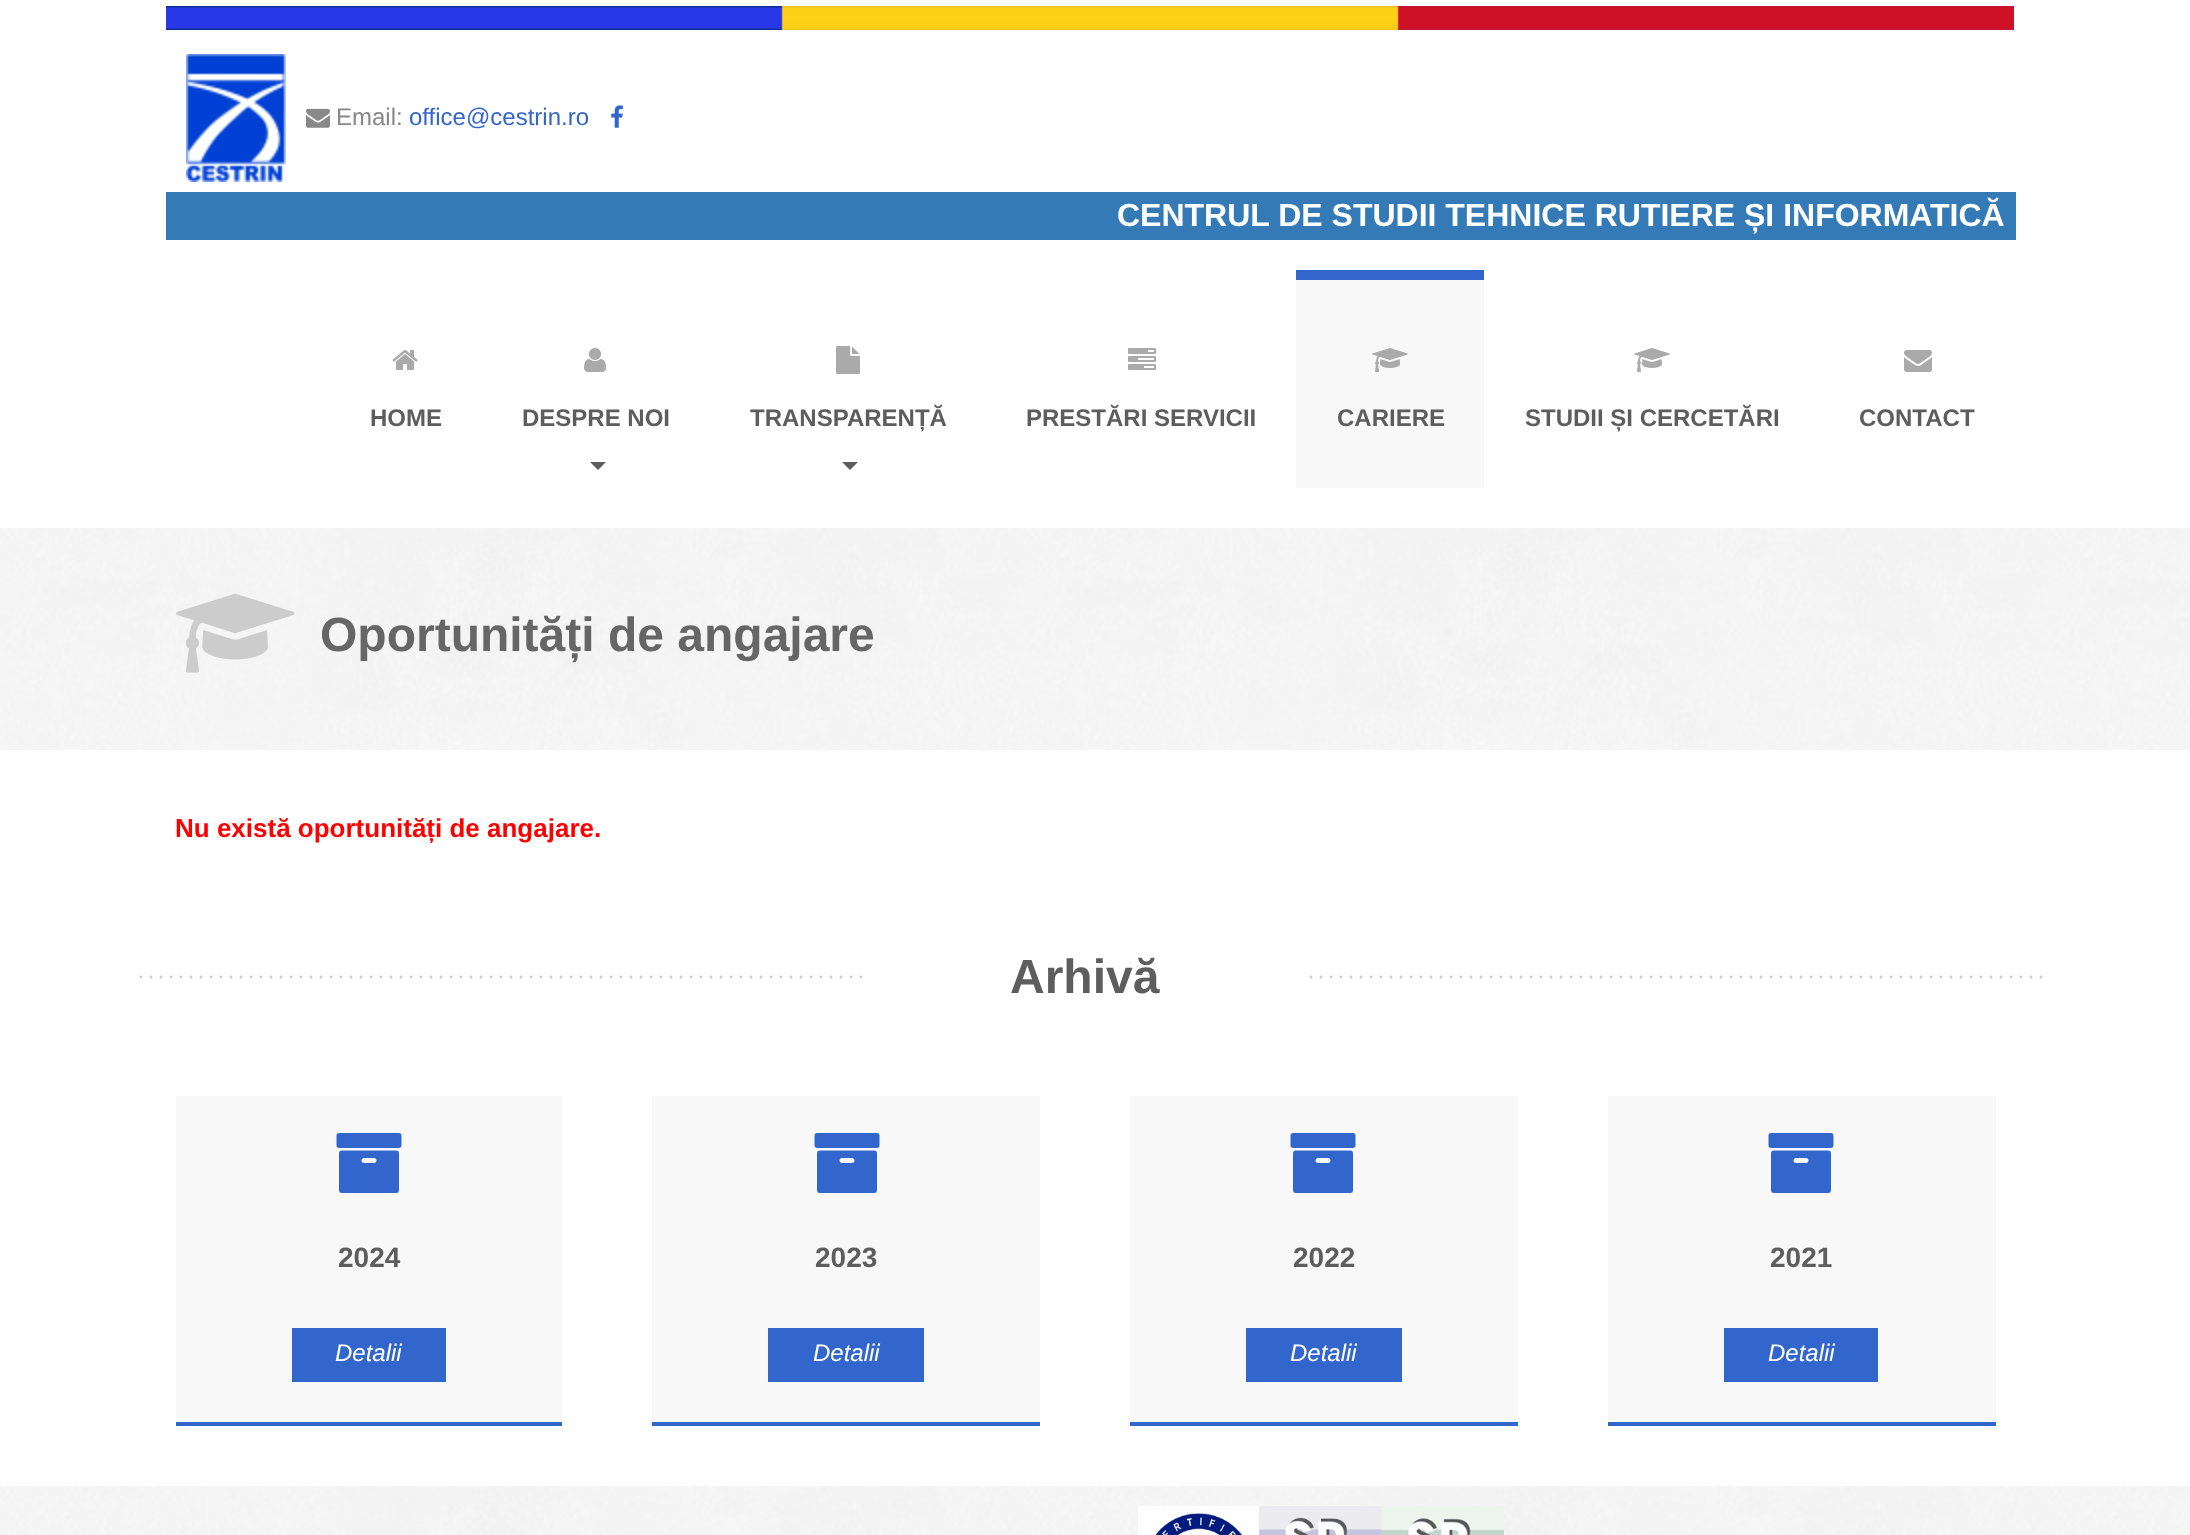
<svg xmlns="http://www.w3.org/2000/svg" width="2190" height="1535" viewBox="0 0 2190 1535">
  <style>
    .t1 { font: 24px Liberation Sans; fill: #888; }
    .t2 { font: 24px Liberation Sans; fill: #36c; }
    .t3 { font: bold 32px Liberation Sans; fill: #fff; }
    .t4 { font: bold 24px Liberation Sans; fill: #5d5d5d; }
    .t5 { font: bold 48px Liberation Sans; fill: #666; }
    .t6 { font: bold 26px Liberation Sans; fill: #f00; }
    .t7 { font: bold 48px Liberation Sans; fill: #5d5d5d; }
    .t8 { font: bold 28px Liberation Sans; fill: #5d5d5d; }
    .t9 { font: italic 24px Liberation Sans; fill: #fff; }
  </style>
  <rect width="100%" height="100%" fill="#fff"/>
  <image x="166" y="6" width="1848" height="24" href="images/1.png"/>
  <image x="186" y="54" width="100" height="128" href="images/2.png"/>
  <image x="306" y="108" width="24" height="20" href="images/3.png"/>
  <text x="336" y="125" class="t1">Email:</text>
  <text x="409" y="125" class="t2">office@cestrin.ro</text>
  <image x="611" y="105" width="12" height="23" href="images/4.png"/>
  <rect x="166" y="192" width="1850" height="48" fill="#337ab7"/>
  <text x="1117" y="226" class="t3">CENTRUL DE STUDII TEHNICE RUTIERE ȘI INFORMATICĂ</text>
  <image x="392" y="350" width="26" height="20" href="images/5.png"/>
  <text x="370" y="426" class="t4">HOME</text>
  <image x="584" y="348" width="22" height="24" href="images/6.png"/>
  <text x="522" y="426" class="t4">DESPRE NOI</text>
  <path d="M590 462H606L598 470Z" fill="#5d5d5d"/>
  <image x="836" y="346" width="24" height="28" href="images/7.png"/>
  <text x="750" y="426" class="t4">TRANSPARENȚĂ</text>
  <path d="M842 462H858L850 470Z" fill="#5d5d5d"/>
  <image x="1128" y="348" width="28" height="22" href="images/8.png"/>
  <text x="1026" y="426" class="t4">PRESTĂRI SERVICII</text>
  <rect x="1296" y="280" width="188" height="208" fill="#f8f8f8"/>
  <rect x="1296" y="270" width="188" height="10" fill="#36c"/>
  <image x="1372" y="348" width="36" height="24" href="images/9.png"/>
  <text x="1337" y="426" class="t4">CARIERE</text>
  <image x="1634" y="348" width="36" height="24" href="images/10.png"/>
  <text x="1525" y="426" class="t4">STUDII ȘI CERCETĂRI</text>
  <image x="1904" y="350" width="28" height="22" href="images/11.png"/>
  <text x="1859" y="426" class="t4">CONTACT</text>
  <image x="0" y="528" width="2190" height="222" href="images/12.png"/>
  <image x="176" y="593" width="119" height="80" href="images/13.png"/>
  <text x="320" y="651" class="t5">Oportunități de angajare</text>
  <text x="175" y="837" class="t6">Nu există oportunități de angajare.</text>
  <image x="139" y="975" width="1904" height="4" href="images/14.png"/>
  <rect x="869" y="975" width="434" height="4" fill="#fff"/>
  <text x="1010" y="993" class="t7">Arhivă</text>
  <rect x="176" y="1096" width="386" height="326" fill="#f8f8f8"/>
  <rect x="176" y="1422" width="386" height="4" fill="#36c"/>
  <image x="336" y="1133" width="66" height="60" href="images/15.png"/>
  <text x="338" y="1267" class="t8">2024</text>
  <rect x="292" y="1328" width="154" height="54" fill="#36c"/>
  <text x="335" y="1361" class="t9">Detalii</text>
  <rect x="652" y="1096" width="388" height="326" fill="#f8f8f8"/>
  <rect x="652" y="1422" width="388" height="4" fill="#36c"/>
  <image x="814" y="1133" width="66" height="60" href="images/15.png"/>
  <text x="815" y="1267" class="t8">2023</text>
  <rect x="768" y="1328" width="156" height="54" fill="#36c"/>
  <text x="813" y="1361" class="t9">Detalii</text>
  <rect x="1130" y="1096" width="388" height="326" fill="#f8f8f8"/>
  <rect x="1130" y="1422" width="388" height="4" fill="#36c"/>
  <image x="1290" y="1133" width="66" height="60" href="images/15.png"/>
  <text x="1293" y="1267" class="t8">2022</text>
  <rect x="1246" y="1328" width="156" height="54" fill="#36c"/>
  <text x="1290" y="1361" class="t9">Detalii</text>
  <rect x="1608" y="1096" width="388" height="326" fill="#f8f8f8"/>
  <rect x="1608" y="1422" width="388" height="4" fill="#36c"/>
  <image x="1768" y="1133" width="66" height="60" href="images/15.png"/>
  <text x="1770" y="1267" class="t8">2021</text>
  <rect x="1724" y="1328" width="154" height="54" fill="#36c"/>
  <text x="1768" y="1361" class="t9">Detalii</text>
  <image x="0" y="1486" width="2190" height="49" href="images/16.png"/>
  <image x="1138" y="1506" width="366" height="29" href="images/17.png"/>
</svg>
